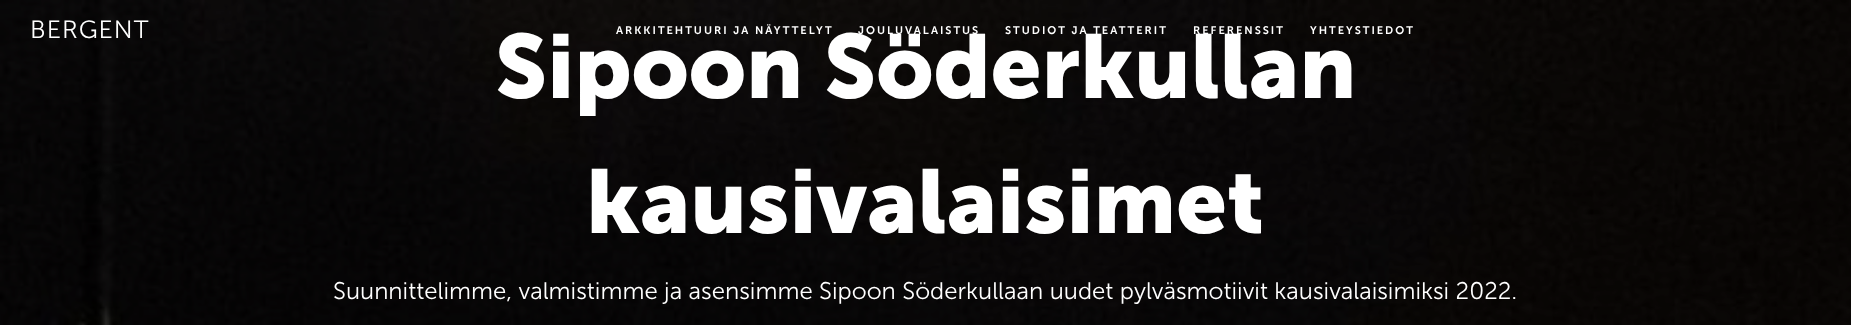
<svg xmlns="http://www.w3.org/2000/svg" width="1851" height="325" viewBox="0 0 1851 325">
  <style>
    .t1 { font: 300 25px 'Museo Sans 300'; letter-spacing: 1px; fill: #fff; }
    .t2 { font: 600 11px 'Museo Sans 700'; letter-spacing: 2px; fill: #fff; }
    .t3 { font: bold 90px 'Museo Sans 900'; fill: #fff; }
    .t4 { font: 300 24px 'Museo Sans 300'; fill: #fff; }
  </style>
  <rect width="100%" height="100%" fill="#fff"/>
  <image x="0" y="0" width="1851" height="325" href="images/1.png"/>
  <text x="30" y="38" class="t1">BERGENT</text>
  <text x="616" y="34" class="t2">ARKKITEHTUURI JA NÄYTTELYT</text>
  <text x="858" y="34" class="t2">JOULUVALAISTUS</text>
  <text x="1005" y="34" class="t2">STUDIOT JA TEATTERIT</text>
  <text x="1193" y="34" class="t2">REFERENSSIT</text>
  <text x="1310" y="34" class="t2">YHTEYSTIEDOT</text>
  <text x="495" y="98" class="t3">Sipoon Söderkullan</text>
  <text x="586" y="233" class="t3">kausivalaisimet</text>
  <text x="333" y="299" class="t4">Suunnittelimme, valmistimme ja asensimme Sipoon Söderkullaan uudet pylväsmotiivit kausivalaisimiksi 2022.</text>
</svg>
